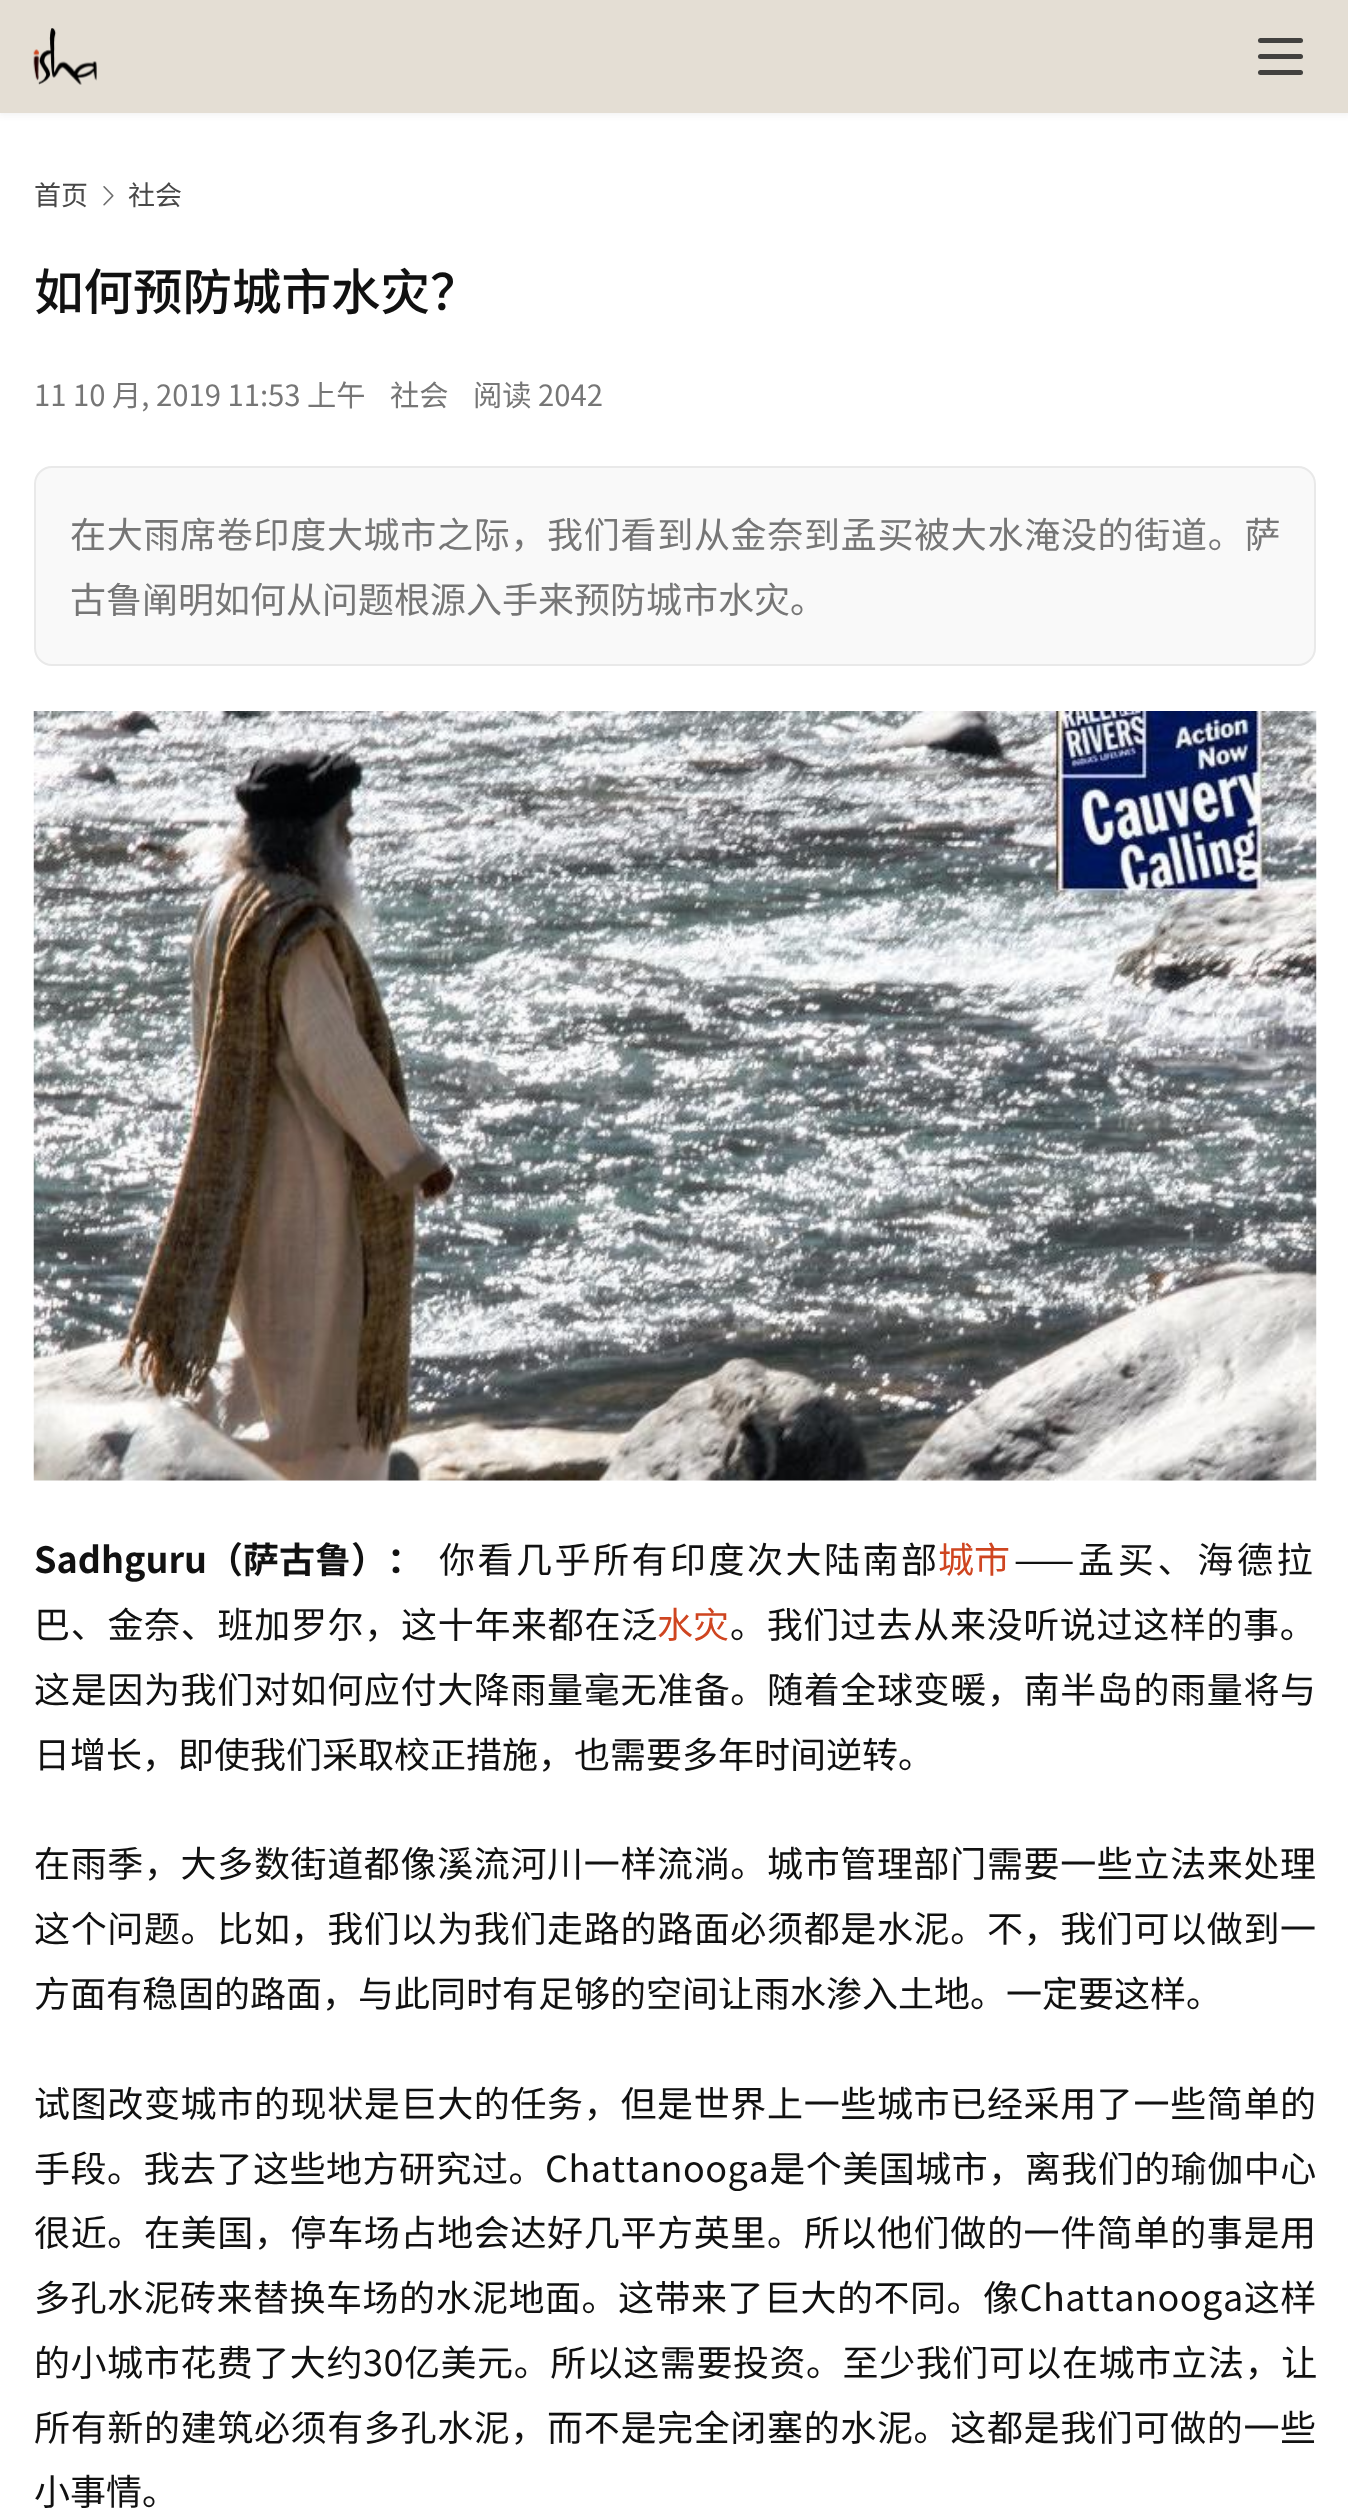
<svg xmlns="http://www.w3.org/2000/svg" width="1348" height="2512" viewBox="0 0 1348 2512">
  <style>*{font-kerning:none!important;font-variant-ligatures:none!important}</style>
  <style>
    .t1 { font: 27px Noto Sans CJK SC; fill: #484848; }
    .t2 { font: 500 49.5px Noto Sans CJK SC; fill: #111; }
    .t3 { font: 29.25px Noto Sans CJK SC; fill: #767676; }
    .t4 { font: 36px Noto Sans CJK SC; letter-spacing: 0.7px; fill: #767676; }
    .t5 { font: 36px Noto Sans CJK SC; fill: #767676; }
    .t6 { font: bold 36px Noto Sans CJK SC; fill: #111; }
    .t7 { font: 36px Noto Sans CJK SC; letter-spacing: 2.5px; fill: #111; }
    .t8 { font: 36px Noto Sans CJK SC; fill: #cf4520; }
    .t9 { font: 36px Noto Sans CJK SC; letter-spacing: 3.75px; fill: #111; }
    .t10 { font: 36px Noto Sans CJK SC; letter-spacing: 0.7px; fill: #111; }
    .t11 { font: 36px Noto Sans CJK SC; letter-spacing: 0.65px; fill: #111; }
    .t12 { font: 36px Noto Sans CJK SC; fill: #111; }
    .t13 { font: 36px Noto Sans CJK SC; letter-spacing: 0.5px; fill: #111; }
    .t14 { font: 36px Noto Sans CJK SC; letter-spacing: 0.55px; fill: #111; }
  </style>
  <rect width="100%" height="100%" fill="#fff"/>
  <rect x="-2" y="-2" width="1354" height="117" fill="#1a1a1a0f" filter="blur(3.5px)"/>
  <rect x="0" y="0" width="1348" height="113" fill="#e4ded4"/>
  <image x="33" y="28" width="64" height="57" href="images/1.png"/>
  <rect x="1258" y="38" width="45" height="5" rx="2.5" fill="#42413f"/>
  <rect x="1258" y="54" width="45" height="5" rx="2.5" fill="#42413f"/>
  <rect x="1258" y="70" width="45" height="5" rx="2.5" fill="#42413f"/>
  <text x="34" y="205" class="t1">首页</text>
  <image x="103" y="186" width="11" height="20" href="images/2.png"/>
  <text x="128" y="205" class="t1">社会</text>
  <text x="34" y="310" class="t2">如何预防城市水灾？</text>
  <text x="34" y="406" class="t3">11 10 月, 2019 11:53 上午</text>
  <text x="390" y="406" class="t3">社会</text>
  <text x="473" y="406" class="t3">阅读 2042</text>
  <rect x="35" y="467" width="1280" height="198" rx="17" fill="#f9f9f9" stroke="#e9e9e9" stroke-width="2"/>
  <text x="70" y="548" class="t4">在大雨席卷印度大城市之际，我们看到从金奈到孟买被大水淹没的街道。萨</text>
  <text x="70" y="613" class="t5">古鲁阐明如何从问题根源入手来预防城市水灾。</text>
  <image x="33" y="711" width="1284" height="770" href="images/3.png"/>
  <text x="34" y="1573" class="t6">Sadhguru（萨古鲁）</text>
  <text x="387" y="1573" class="t6">：</text>
  <text x="439" y="1573" class="t7">你看几乎所有印度次大陆南部</text>
  <text x="938" y="1573" class="t8">城市</text>
  <text x="1014" y="1573" class="t9">——孟买、海德拉</text>
  <text x="34" y="1638" class="t10">巴、金奈、班加罗尔，这十年来都在泛</text>
  <text x="657" y="1638" class="t8">水灾</text>
  <text x="730" y="1638" class="t11">。我们过去从来没听说过这样的事。</text>
  <text x="34" y="1703" class="t11">这是因为我们对如何应付大降雨量毫无准备。随着全球变暖，南半岛的雨量将与</text>
  <text x="34" y="1768" class="t12">日增长，即使我们采取校正措施，也需要多年时间逆转。</text>
  <text x="34" y="1877" class="t11">在雨季，大多数街道都像溪流河川一样流淌。城市管理部门需要一些立法来处理</text>
  <text x="34" y="1942" class="t11">这个问题。比如，我们以为我们走路的路面必须都是水泥。不，我们可以做到一</text>
  <text x="34" y="2007" class="t12">方面有稳固的路面，与此同时有足够的空间让雨水渗入土地。一定要这样。</text>
  <text x="34" y="2117" class="t11">试图改变城市的现状是巨大的任务，但是世界上一些城市已经采用了一些简单的</text>
  <text x="34" y="2182" class="t13">手段。我去了这些地方研究过。Chattanooga是个美国城市，离我们的瑜伽中心</text>
  <text x="34" y="2246" class="t11">很近。在美国，停车场占地会达好几平方英里。所以他们做的一件简单的事是用</text>
  <text x="34" y="2311" class="t13">多孔水泥砖来替换车场的水泥地面。这带来了巨大的不同。像Chattanooga这样</text>
  <text x="34" y="2376" class="t14">的小城市花费了大约30亿美元。所以这需要投资。至少我们可以在城市立法，让</text>
  <text x="34" y="2441" class="t11">所有新的建筑必须有多孔水泥，而不是完全闭塞的水泥。这都是我们可做的一些</text>
  <text x="34" y="2505" class="t12">小事情。</text>
</svg>
